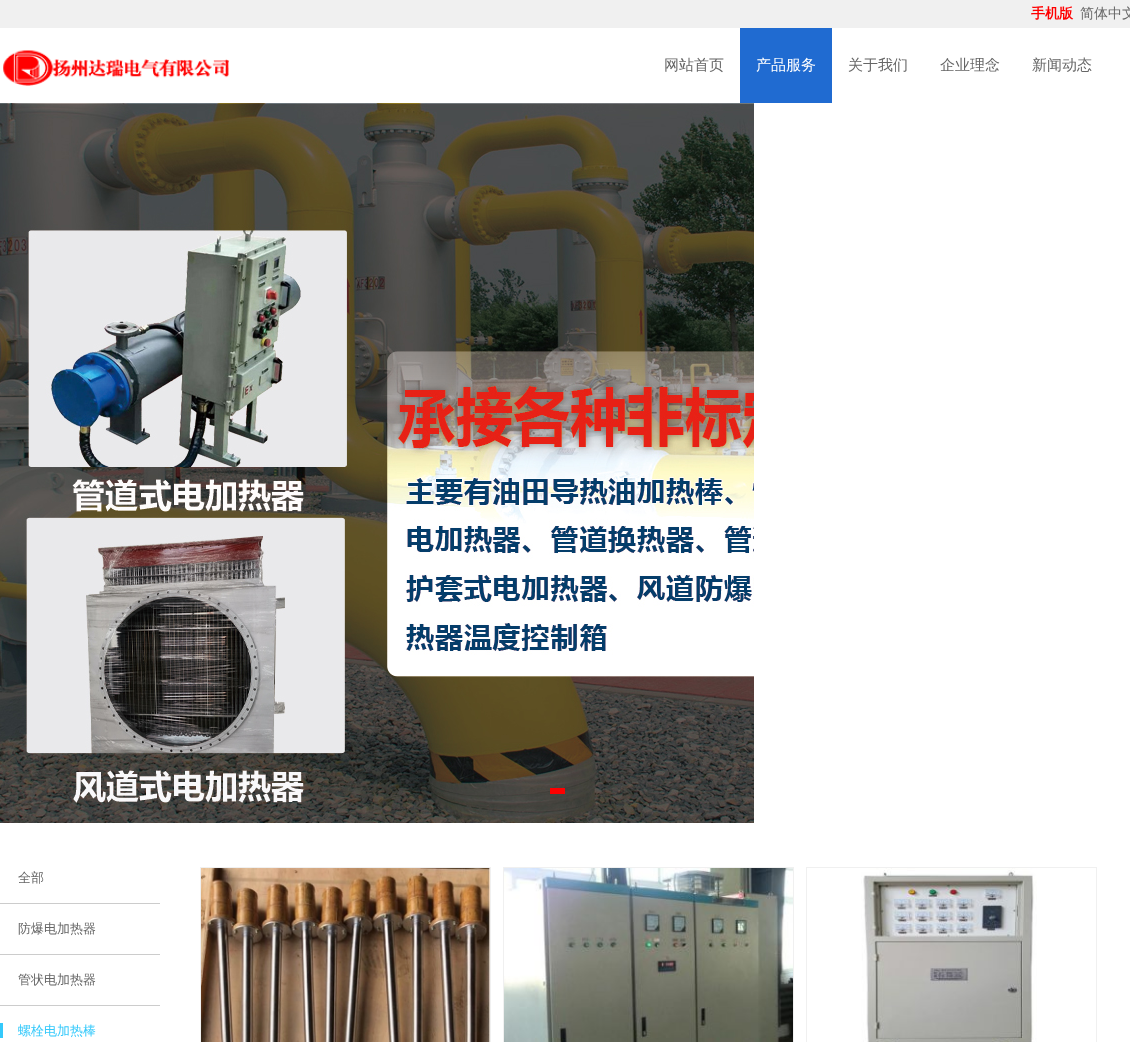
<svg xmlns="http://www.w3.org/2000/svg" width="1130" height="1042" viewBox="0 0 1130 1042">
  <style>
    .t1 { font: bold 14px WenQuanYi Zen Hei; fill: #f00; }
    .t2 { font: 500 14px WenQuanYi Zen Hei; fill: #666; }
    .t3 { font: 500 15px WenQuanYi Zen Hei; fill: #666; }
    .t4 { font: 500 15px WenQuanYi Zen Hei; fill: #fff; }
    .t5 { font: 500 13px WenQuanYi Zen Hei; fill: #666; }
    .t6 { font: 500 13px WenQuanYi Zen Hei; fill: #34c9fb; }
  </style>
  <rect width="100%" height="100%" fill="#fff"/>
  <rect x="0" y="0" width="1130" height="28" fill="#f0f0f0"/>
  <text x="1031" y="18" class="t1">手机版</text>
  <text x="1080" y="18" class="t2">简体中文</text>
  <image x="3" y="50" width="226" height="36" href="images/1.png"/>
  <text x="664" y="70" class="t3">网站首页</text>
  <rect x="740" y="28" width="92" height="75" fill="#206bd1"/>
  <text x="756" y="70" class="t4">产品服务</text>
  <text x="848" y="70" class="t3">关于我们</text>
  <text x="940" y="70" class="t3">企业理念</text>
  <text x="1032" y="70" class="t3">新闻动态</text>
  <image x="0" y="103" width="754" height="720" href="images/2.png"/>
  <rect x="550" y="788" width="15" height="6" fill="#f00"/>
  <text x="18" y="882" class="t5">全部</text>
  <rect x="0" y="903" width="160" height="1" fill="#ccc"/>
  <text x="18" y="933" class="t5">防爆电加热器</text>
  <rect x="0" y="954" width="160" height="1" fill="#ccc"/>
  <text x="18" y="984" class="t5">管状电加热器</text>
  <rect x="0" y="1005" width="160" height="1" fill="#ccc"/>
  <text x="18" y="1035" class="t6">螺栓电加热棒</text>
  <rect x="0" y="1023" width="3" height="15" fill="#34c9fb"/>
  <rect x="200.5" y="867.5" width="290" height="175" fill="none" stroke="#f0f0f0"/>
  <image x="201" y="868" width="289" height="174" href="images/3.png"/>
  <rect x="503.5" y="867.5" width="290" height="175" fill="none" stroke="#f0f0f0"/>
  <image x="504" y="868" width="289" height="174" href="images/4.png"/>
  <rect x="806.5" y="867.5" width="290" height="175" fill="none" stroke="#f0f0f0"/>
  <image x="861" y="868" width="176" height="174" href="images/5.png"/>
</svg>
